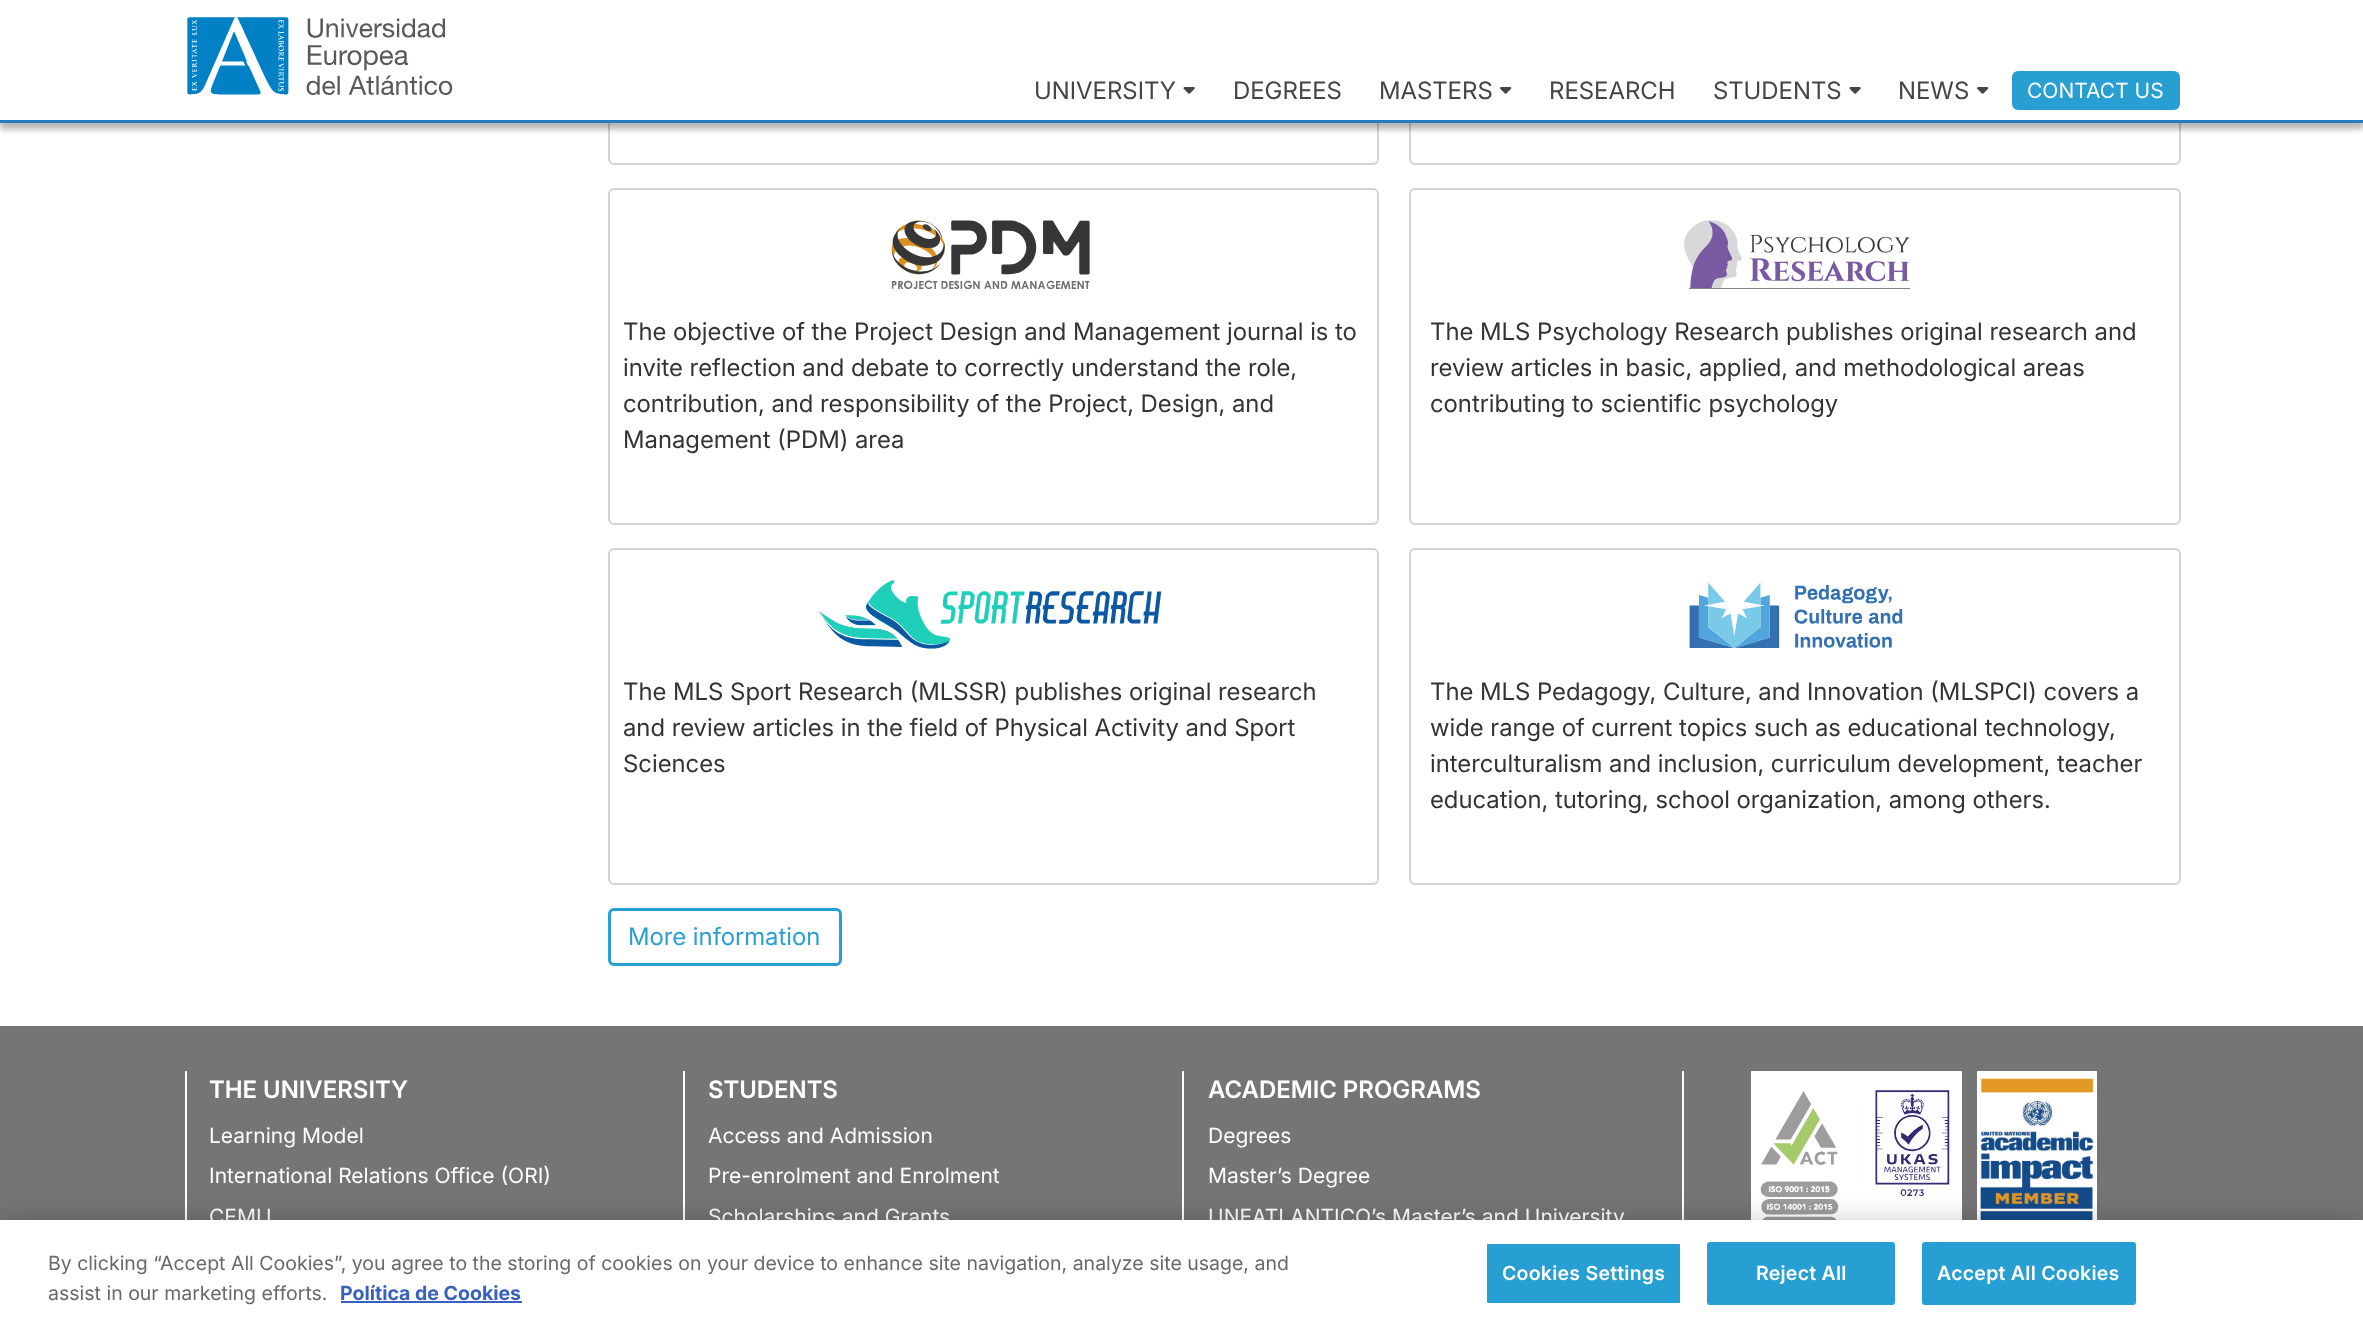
<svg xmlns="http://www.w3.org/2000/svg" width="2363" height="1323" viewBox="0 0 2363 1323">
  <style>
    .t1 { font: 24px Inter; fill: #454545; }
    .t2 { font: 21px 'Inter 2'; fill: #fff; }
    .t3 { font: 24px Inter; fill: #333; }
    .t4 { font: 24px Inter; fill: #289fd2; }
    .t5 { font: 600 24px Inter; fill: #fff; }
    .t6 { font: 19.5px 'Inter 2'; fill: #696969; }
    .t7 { font: bold 19.5px Inter; fill: #3860be; }
    .t8 { font: 600 19.5px 'Inter 2'; letter-spacing: 0.25px; fill: #fff; }
  </style>
  <rect width="100%" height="100%" fill="#fff"/>
  <rect x="609" y="-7" width="769" height="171" rx="5" fill="none" stroke="#d3d3d5" stroke-width="2"/>
  <rect x="1410" y="-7" width="770" height="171" rx="5" fill="none" stroke="#d3d3d5" stroke-width="2"/>
  <rect x="0" y="6" width="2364" height="123" fill="#0000004d" filter="blur(3px)"/>
  <rect x="0" y="0" width="2363" height="120" fill="#fff"/>
  <rect x="0" y="120" width="2363" height="3" fill="#287cc0"/>
  <image x="187" y="17" width="266" height="78" href="images/1.png"/>
  <text x="1034" y="99" class="t1">UNIVERSITY</text>
  <image x="1183" y="87" width="12" height="7" href="images/2.png"/>
  <text x="1233" y="99" class="t1">DEGREES</text>
  <text x="1379" y="99" class="t1">MASTERS</text>
  <image x="1500" y="87" width="12" height="7" href="images/3.png"/>
  <text x="1549" y="99" class="t1">RESEARCH</text>
  <text x="1713" y="99" class="t1">STUDENTS</text>
  <image x="1849" y="87" width="12" height="7" href="images/2.png"/>
  <text x="1898" y="99" class="t1">NEWS</text>
  <image x="1977" y="87" width="12" height="7" href="images/3.png"/>
  <rect x="2013" y="72" width="166" height="37" rx="5" fill="#289fd2" stroke="#289fd2" stroke-width="2"/>
  <text x="2027" y="98" class="t2">CONTACT US</text>
  <rect x="609" y="189" width="769" height="335" rx="5" fill="none" stroke="#d3d3d5" stroke-width="2"/>
  <image x="891" y="220" width="199" height="69" href="images/4.png"/>
  <text x="623" y="340" class="t3">The objective of the Project Design and Management journal is to</text>
  <text x="623" y="376" class="t3">invite reflection and debate to correctly understand the role,</text>
  <text x="623" y="412" class="t3">contribution, and responsibility of the Project, Design, and</text>
  <text x="623" y="448" class="t3">Management (PDM) area</text>
  <rect x="1410" y="189" width="770" height="335" rx="5" fill="none" stroke="#d3d3d5" stroke-width="2"/>
  <image x="1684" y="220" width="227" height="69" href="images/5.png"/>
  <text x="1430" y="340" class="t3">The MLS Psychology Research publishes original research and</text>
  <text x="1430" y="376" class="t3">review articles in basic, applied, and methodological areas</text>
  <text x="1430" y="412" class="t3">contributing to scientific psychology</text>
  <rect x="609" y="549" width="769" height="335" rx="5" fill="none" stroke="#d3d3d5" stroke-width="2"/>
  <image x="818" y="580" width="344" height="69" href="images/6.png"/>
  <text x="623" y="700" class="t3">The MLS Sport Research (MLSSR) publishes original research</text>
  <text x="623" y="736" class="t3">and review articles in the field of Physical Activity and Sport</text>
  <text x="623" y="772" class="t3">Sciences</text>
  <rect x="1410" y="549" width="770" height="335" rx="5" fill="none" stroke="#d3d3d5" stroke-width="2"/>
  <image x="1689" y="582" width="214" height="66" href="images/7.png"/>
  <text x="1430" y="700" class="t3">The MLS Pedagogy, Culture, and Innovation (MLSPCI) covers a</text>
  <text x="1430" y="736" class="t3">wide range of current topics such as educational technology,</text>
  <text x="1430" y="772" class="t3">interculturalism and inclusion, curriculum development, teacher</text>
  <text x="1430" y="808" class="t3">education, tutoring, school organization, among others.</text>
  <rect x="609.5" y="909.5" width="231" height="55" rx="4.5" fill="none" stroke="#289fd2" stroke-width="3"/>
  <text x="628" y="945" class="t4">More information</text>
  <rect x="0" y="1026" width="2363" height="194" fill="#757575"/>
  <rect x="185" y="1071" width="2" height="149" fill="#fff"/>
  <text x="209" y="1098" class="t5">THE UNIVERSITY</text>
  <text x="209" y="1143" class="t2">Learning Model</text>
  <text x="209" y="1183" class="t2">International Relations Office (ORI)</text>
  <text x="209" y="1224" class="t2">CEMU</text>
  <rect x="683" y="1071" width="2" height="149" fill="#fff"/>
  <text x="708" y="1098" class="t5">STUDENTS</text>
  <text x="708" y="1143" class="t2">Access and Admission</text>
  <text x="708" y="1183" class="t2">Pre-enrolment and Enrolment</text>
  <text x="708" y="1224" class="t2">Scholarships and Grants</text>
  <rect x="1182" y="1071" width="2" height="149" fill="#fff"/>
  <text x="1208" y="1098" class="t5">ACADEMIC PROGRAMS</text>
  <text x="1208" y="1143" class="t2">Degrees</text>
  <text x="1208" y="1183" class="t2">Master’s Degree</text>
  <text x="1208" y="1224" class="t2">UNEATLANTICO’s Master’s and University</text>
  <rect x="1682" y="1071" width="2" height="149" fill="#fff"/>
  <image x="1751" y="1071" width="211" height="149" href="images/8.png"/>
  <image x="1977" y="1071" width="120" height="149" href="images/9.png"/>
  <rect x="0" y="1220" width="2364" height="103" fill="#00000033" filter="blur(13.5px)"/>
  <rect x="0" y="1220" width="2363" height="103" fill="#fff"/>
  <text x="48" y="1270" class="t6">By clicking “Accept All Cookies”, you agree to the storing of cookies on your device to enhance site navigation, analyze site usage, and</text>
  <text x="48" y="1300" class="t6">assist in our marketing efforts.</text>
  <text x="340" y="1300" class="t7">Política de Cookies</text>
  <rect x="341" y="1301" width="181" height="2" fill="#3860be"/>
  <rect x="1486" y="1243" width="195" height="61" rx="2" fill="#289fd2" stroke="#fff" stroke-width="2"/>
  <text x="1502" y="1280" class="t8">Cookies Settings</text>
  <rect x="1708" y="1243" width="186" height="61" rx="2" fill="#289fd2" stroke="#289fd2" stroke-width="2"/>
  <text x="1756" y="1280" class="t8">Reject All</text>
  <rect x="1923" y="1243" width="212" height="61" rx="2" fill="#289fd2" stroke="#289fd2" stroke-width="2"/>
  <text x="1937" y="1280" class="t8">Accept All Cookies</text>
</svg>
